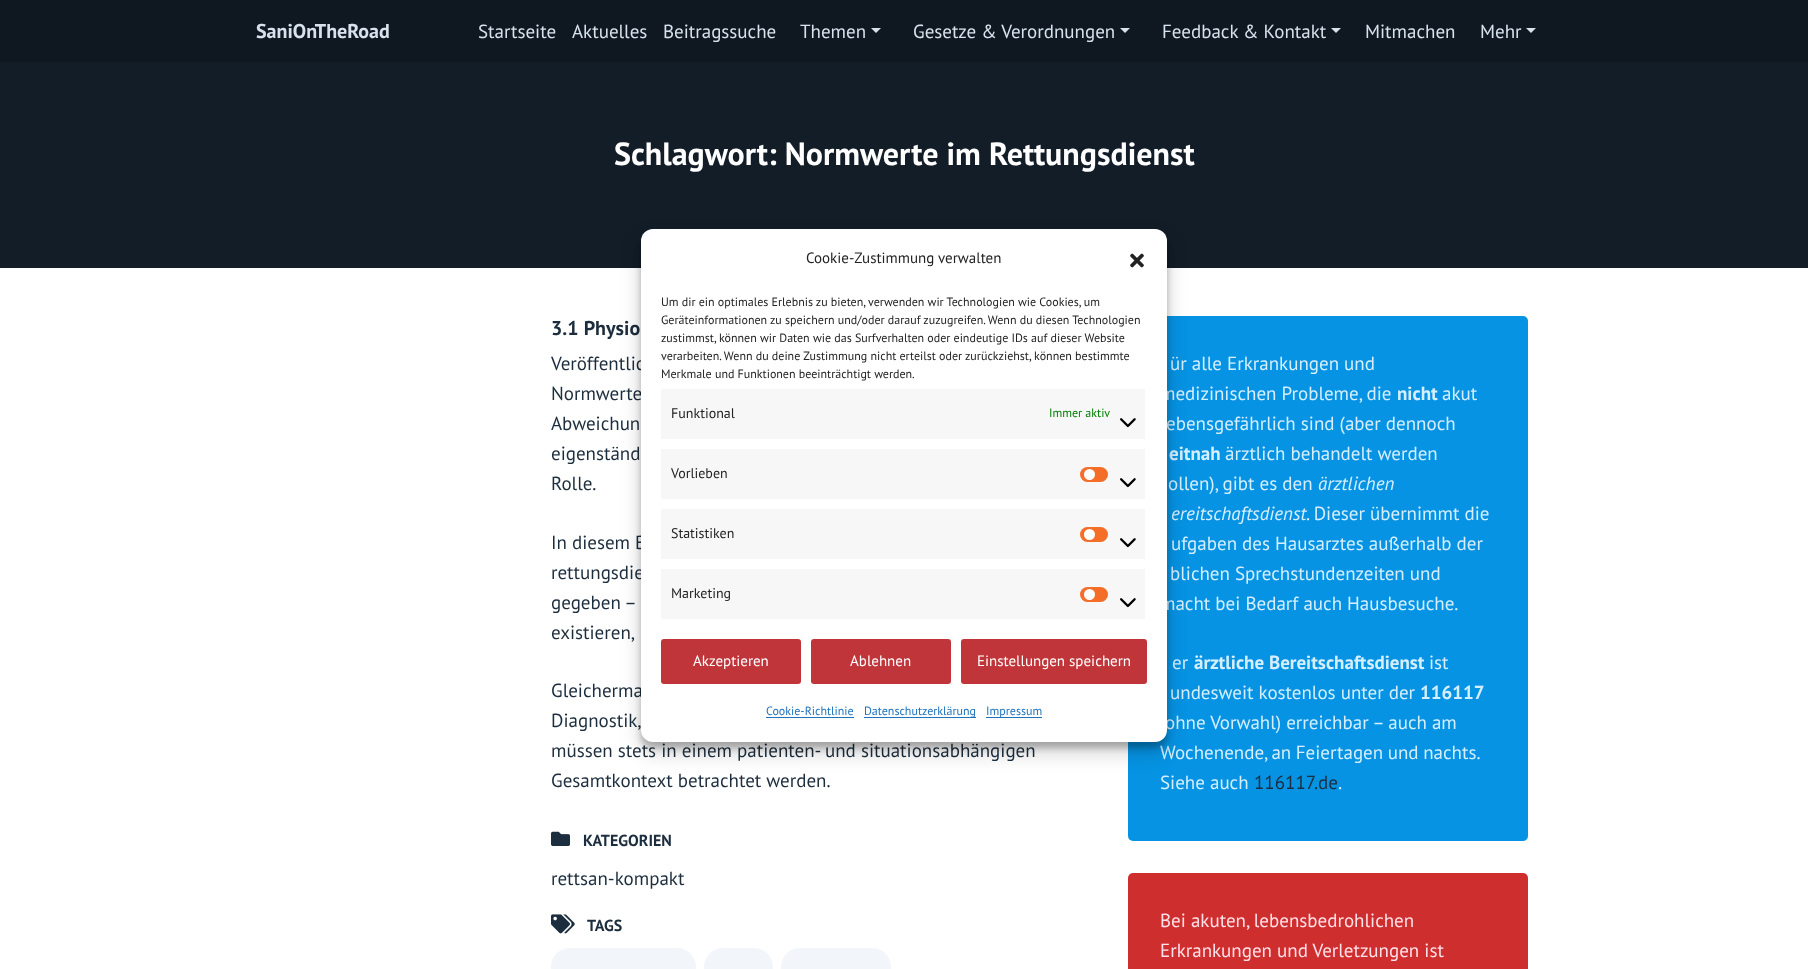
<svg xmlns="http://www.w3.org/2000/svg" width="1808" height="969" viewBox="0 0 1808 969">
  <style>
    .t1 { font: bold 20px PT Sans; fill: #d7e2ed; }
    .t2 { font: 19px PT Sans; fill: #d7e2ed; }
    .t3 { font: bold 32px PT Sans; fill: #fff; }
    .t4 { font: bold 20px PT Sans; fill: #1c2d3d; }
    .t5 { font: 19px PT Sans; fill: #1c2d3d; }
    .t6 { font: bold 16px PT Sans; fill: #1c2d3d; }
    .t7 { font: 19px PT Sans; fill: #d5efff; }
    .t8 { font: bold 19px PT Sans; fill: #d5efff; }
    .t9 { font: italic 19px PT Sans; fill: #d5efff; }
    .t10 { font: 19px PT Sans; fill: #ffe2e9; }
    .t11 { font: 15px PT Sans; fill: #222; }
    .t12 { font: 12px PT Sans; fill: #222; }
    .t13 { font: 14px PT Sans; fill: #222; }
    .t14 { font: 12px PT Sans; fill: #008000; }
    .t15 { font: 15px PT Sans; fill: #fff; }
    .t16 { font: 12px PT Sans; fill: #1e73be; }
  </style>
  <rect width="100%" height="100%" fill="#fff"/>
  <rect x="0" y="0" width="1808" height="62" fill="#0f1821"/>
  <text x="256" y="38" class="t1">SaniOnTheRoad</text>
  <text x="478" y="38" class="t2">Startseite</text>
  <text x="572" y="38" class="t2">Aktuelles</text>
  <text x="663" y="38" class="t2">Beitragssuche</text>
  <text x="800" y="38" class="t2">Themen</text>
  <path d="M871 28H881L876 33Z" fill="#d7e2ed"/>
  <text x="913" y="38" class="t2">Gesetze &amp; Verordnungen</text>
  <path d="M1120 28H1130L1125 33Z" fill="#d7e2ed"/>
  <text x="1162" y="38" class="t2">Feedback &amp; Kontakt</text>
  <path d="M1331 28H1341L1336 33Z" fill="#d7e2ed"/>
  <text x="1365" y="38" class="t2">Mitmachen</text>
  <text x="1480" y="38" class="t2">Mehr</text>
  <path d="M1526 28H1536L1531 33Z" fill="#d7e2ed"/>
  <rect x="0" y="62" width="1808" height="206" fill="#121d28"/>
  <text x="614" y="165" class="t3">Schlagwort: Normwerte im Rettungsdienst</text>
  <text x="551" y="335" class="t4">3.1 Physio</text>
  <text x="551" y="370" class="t5">Veröffentlic</text>
  <text x="551" y="400" class="t5">Normwerte</text>
  <text x="551" y="430" class="t5">Abweichun</text>
  <text x="551" y="460" class="t5">eigenständ</text>
  <text x="551" y="490" class="t5">Rolle.</text>
  <text x="551" y="549" class="t5">In diesem B</text>
  <text x="551" y="579" class="t5">rettungsdie</text>
  <text x="551" y="609" class="t5">gegeben –</text>
  <text x="551" y="639" class="t5">existieren,</text>
  <text x="551" y="697" class="t5">Gleicherma</text>
  <text x="551" y="727" class="t5">Diagnostik,</text>
  <text x="551" y="757" class="t5">müssen stets in einem patienten- und situationsabhängigen</text>
  <text x="551" y="787" class="t5">Gesamtkontext betrachtet werden.</text>
  <image x="551" y="831" width="19" height="15" href="images/1.png"/>
  <text x="583" y="846" class="t6">KATEGORIEN</text>
  <text x="551" y="885" class="t5">rettsan-kompakt</text>
  <image x="551" y="914" width="24" height="20" href="images/2.png"/>
  <text x="587" y="931" class="t6">TAGS</text>
  <rect x="551" y="948" width="145" height="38" rx="19" fill="#f2f6fa"/>
  <rect x="704" y="948" width="69" height="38" rx="19" fill="#f2f6fa"/>
  <rect x="781" y="948" width="110" height="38" rx="19" fill="#f2f6fa"/>
  <rect x="1128" y="316" width="400" height="525" rx="5" fill="#0693e3"/>
  <text x="1170" y="370" class="t7">ür alle Erkrankungen und</text>
  <text x="1160" y="400" class="t7">medizinischen Probleme, die</text>
  <text x="1397" y="400" class="t8">nicht</text>
  <text x="1442" y="400" class="t7">akut</text>
  <text x="1166" y="430" class="t7">ebensgefährlich sind (aber dennoch</text>
  <text x="1169" y="460" class="t8">eitnah</text>
  <text x="1225" y="460" class="t7">ärztlich behandelt werden</text>
  <text x="1168" y="490" class="t7">ollen), gibt es den</text>
  <text x="1318" y="490" class="t9">ärztlichen</text>
  <text x="1171" y="520" class="t9">ereitschaftsdienst</text>
  <text x="1306" y="520" class="t7">. Dieser übernimmt die</text>
  <text x="1171" y="550" class="t7">ufgaben des Hausarztes außerhalb der</text>
  <text x="1170" y="580" class="t7">blichen Sprechstundenzeiten und</text>
  <text x="1160" y="610" class="t7">macht bei Bedarf auch Hausbesuche.</text>
  <text x="1172" y="669" class="t7">er</text>
  <text x="1194" y="669" class="t8">ärztliche Bereitschaftsdienst</text>
  <text x="1429" y="669" class="t7">ist</text>
  <text x="1170" y="699" class="t7">undesweit kostenlos unter der</text>
  <text x="1420" y="699" class="t8">116117</text>
  <text x="1165" y="729" class="t7">ohne Vorwahl) erreichbar – auch am</text>
  <text x="1160" y="759" word-spacing="-0.5" class="t7">Wochenende, an Feiertagen und nachts.</text>
  <text x="1160" y="789" class="t7">Siehe auch</text>
  <text x="1254" y="789" class="t5">116117.de</text>
  <text x="1338" y="789" class="t7">.</text>
  <rect x="1128" y="873" width="400" height="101" rx="5" fill="#cf2e2e"/>
  <text x="1160" y="927" class="t10">Bei akuten, lebensbedrohlichen</text>
  <text x="1160" y="957" class="t10">Erkrankungen und Verletzungen ist</text>
  <rect x="641" y="235" width="526" height="513" rx="12" fill="#0000003b" filter="blur(3px)"/>
  <rect x="641" y="239" width="526" height="513" rx="12" fill="#00000030" filter="blur(10px)"/>
  <rect x="641" y="229" width="526" height="513" rx="12" fill="#fff"/>
  <text x="806" y="263" class="t11">Cookie-Zustimmung verwalten</text>
  <image x="1130" y="253" width="14" height="15" href="images/3.png"/>
  <text x="661" y="306" class="t12">Um dir ein optimales Erlebnis zu bieten, verwenden wir Technologien wie Cookies, um</text>
  <text x="661" y="324" class="t12">Geräteinformationen zu speichern und/oder darauf zuzugreifen. Wenn du diesen Technologien</text>
  <text x="661" y="342" class="t12">zustimmst, können wir Daten wie das Surfverhalten oder eindeutige IDs auf dieser Website</text>
  <text x="661" y="360" class="t12">verarbeiten. Wenn du deine Zustimmung nicht erteilst oder zurückziehst, können bestimmte</text>
  <text x="661" y="378" class="t12">Merkmale und Funktionen beeinträchtigt werden.</text>
  <rect x="661" y="389" width="484" height="50" fill="#f7f7f7"/>
  <text x="671" y="418" class="t13">Funktional</text>
  <text x="1049" y="417" class="t14">Immer aktiv</text>
  <image x="1120" y="418" width="16" height="10" href="images/4.png"/>
  <rect x="661" y="449" width="484" height="50" fill="#f7f7f7"/>
  <text x="671" y="478" class="t13">Vorlieben</text>
  <rect x="1080" y="467" width="28" height="15" rx="7.5" fill="#f56e28"/>
  <circle cx="1089.5" cy="474.5" r="5.5" fill="#fff"/>
  <image x="1120" y="478" width="16" height="10" href="images/4.png"/>
  <rect x="661" y="509" width="484" height="50" fill="#f7f7f7"/>
  <text x="671" y="538" class="t13">Statistiken</text>
  <rect x="1080" y="527" width="28" height="15" rx="7.5" fill="#f56e28"/>
  <circle cx="1089.5" cy="534.5" r="5.5" fill="#fff"/>
  <image x="1120" y="538" width="16" height="10" href="images/4.png"/>
  <rect x="661" y="569" width="484" height="50" fill="#f7f7f7"/>
  <text x="671" y="598" class="t13">Marketing</text>
  <rect x="1080" y="587" width="28" height="15" rx="7.5" fill="#f56e28"/>
  <circle cx="1089.5" cy="594.5" r="5.5" fill="#fff"/>
  <image x="1120" y="598" width="16" height="10" href="images/4.png"/>
  <rect x="661" y="639" width="140" height="45" rx="3" fill="#c0353a"/>
  <text x="693" y="666" class="t15">Akzeptieren</text>
  <rect x="811" y="639" width="140" height="45" rx="3" fill="#c0353a"/>
  <text x="850" y="666" class="t15">Ablehnen</text>
  <rect x="961" y="639" width="186" height="45" rx="3" fill="#c0353a"/>
  <text x="977" y="666" class="t15">Einstellungen speichern</text>
  <text x="766" y="715" class="t16">Cookie-Richtlinie</text>
  <rect x="766" y="717" width="88" height="1" fill="#1e73be"/>
  <rect x="864" y="717" width="112" height="1" fill="#1e73be"/>
  <text x="864" y="715" class="t16">Datenschutzerklärung</text>
  <rect x="986" y="717" width="56" height="1" fill="#1e73be"/>
  <text x="986" y="715" class="t16">Impressum</text>
</svg>
